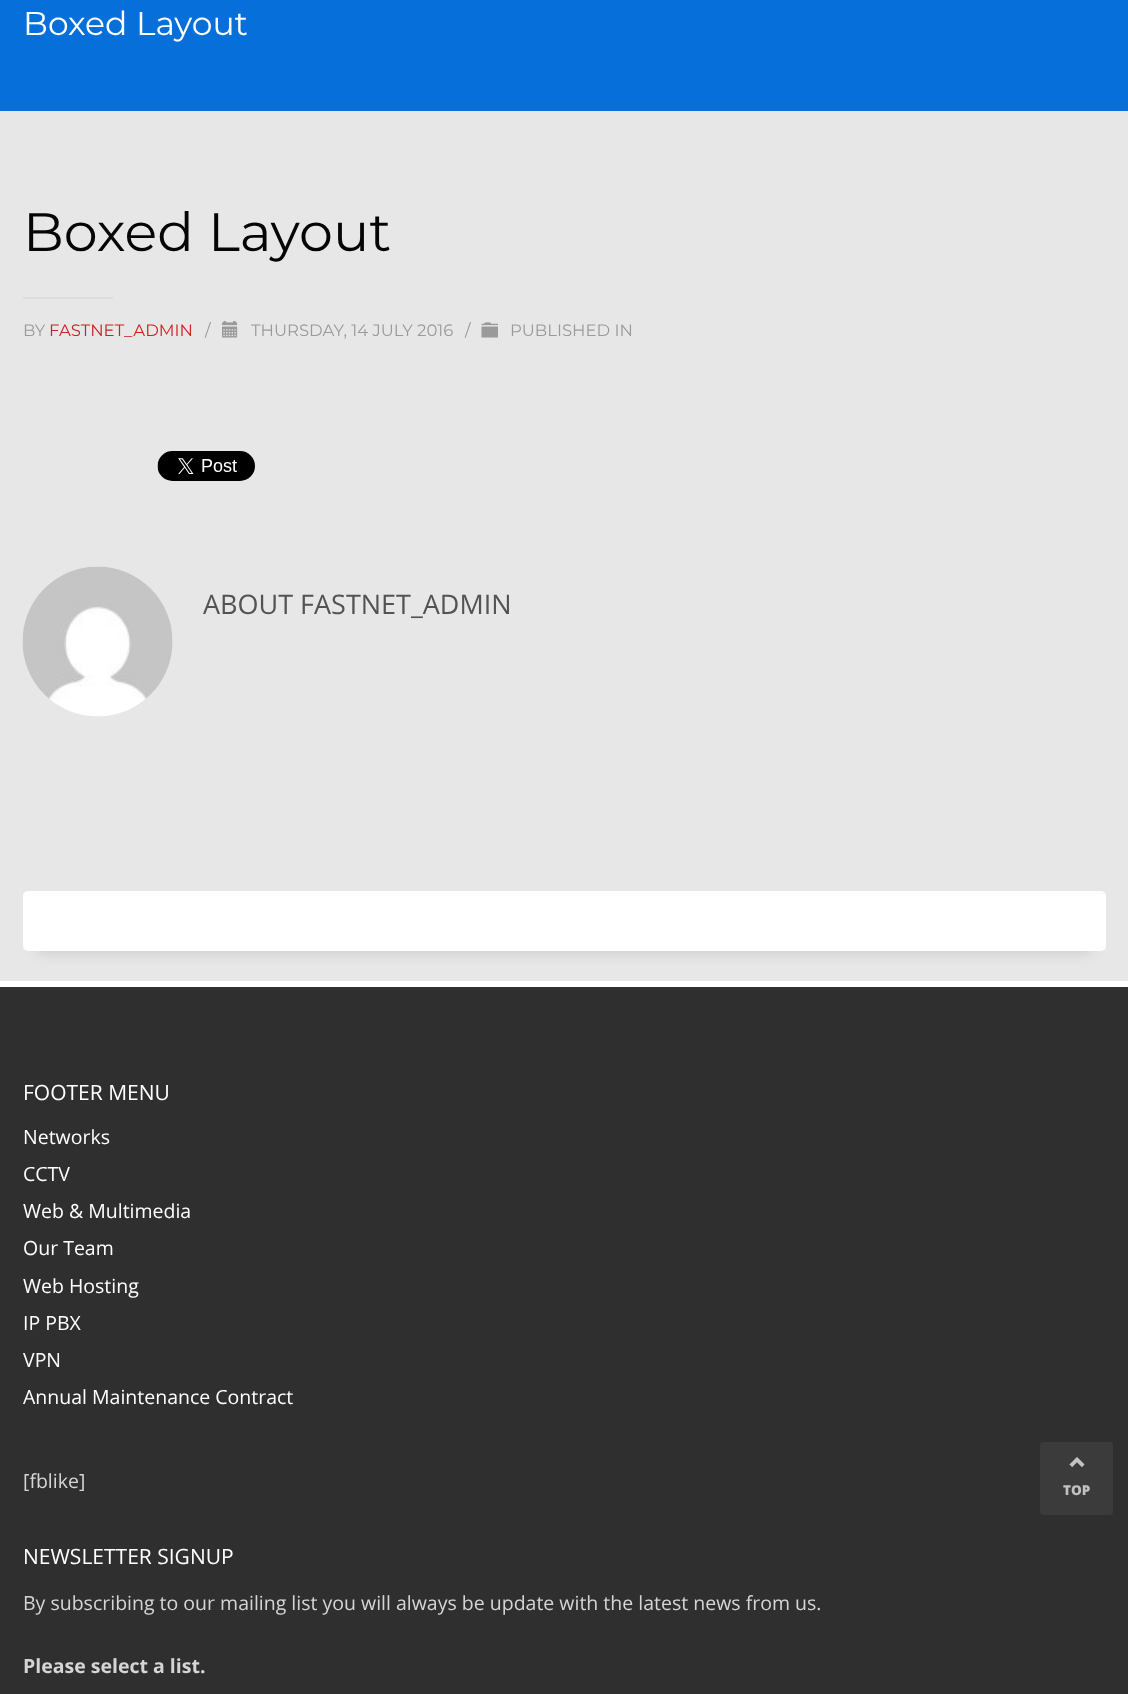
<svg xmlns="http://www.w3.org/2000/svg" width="1128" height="1694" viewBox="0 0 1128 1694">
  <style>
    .t1 { font: 33px Montserrat; fill: #fff; }
    .t2 { font: 54px Montserrat; fill: #050505; }
    .t3 { font: 16.5px Montserrat; fill: #9a9a9a; }
    .t4 { font: 16.5px Montserrat; fill: #cd2122; }
    .t5 { font: 27px Open Sans; fill: #535353; }
    .t6 { font: 21px Open Sans; fill: #fff; }
    .t7 { font: 19.5px Open Sans; fill: #fff; }
    .t8 { font: 19.5px Open Sans; fill: #d5d5d5; }
    .t9 { font: bold 19.5px Open Sans; fill: #d5d5d5; }
    .t10 { font: 800 13.5px Open Sans; fill: #c1c1c1; }
  </style>
  <rect width="100%" height="100%" fill="#e7e7e7"/>
  <rect x="0" y="0" width="1128" height="111" fill="#066fd9"/>
  <text x="23" y="35" class="t1">Boxed Layout</text>
  <text x="23" y="251" class="t2">Boxed Layout</text>
  <rect x="23" y="297" width="90" height="2" fill="#ddd"/>
  <text x="23" y="336" class="t3">BY</text>
  <text x="49" y="336" class="t4">FASTNET_ADMIN</text>
  <text x="205" y="336" class="t3">/</text>
  <image x="222" y="321" width="16" height="17" href="images/1.png"/>
  <text x="251" y="336" class="t3">THURSDAY, 14 JULY 2016</text>
  <text x="465" y="336" class="t3">/</text>
  <image x="481" y="322" width="17" height="16" href="images/2.png"/>
  <text x="510" y="336" class="t3">PUBLISHED IN</text>
  <image x="157" y="451" width="98" height="30" href="images/3.png"/>
  <image x="22" y="566" width="151" height="151" href="images/4.png"/>
  <text x="203" y="614" class="t5">ABOUT FASTNET_ADMIN</text>
  <rect x="38" y="921" width="1053" height="30" fill="#00000026" filter="blur(7.5px)"/>
  <rect x="23" y="891" width="1083" height="60" rx="5" fill="#fff"/>
  <rect x="0" y="987" width="1128" height="707" fill="#2f2f2f"/>
  <rect x="0" y="981" width="1128" height="6" fill="#fff"/>
  <text x="23" y="1100" class="t6">FOOTER MENU</text>
  <text x="23" y="1144" class="t7">Networks</text>
  <text x="23" y="1181" class="t7">CCTV</text>
  <text x="23" y="1218" class="t7">Web &amp; Multimedia</text>
  <text x="23" y="1255" class="t7">Our Team</text>
  <text x="23" y="1293" class="t7">Web Hosting</text>
  <text x="23" y="1330" class="t7">IP PBX</text>
  <text x="23" y="1367" class="t7">VPN</text>
  <text x="23" y="1404" class="t7">Annual Maintenance Contract</text>
  <text x="23" y="1488" class="t8">[fblike]</text>
  <text x="23" y="1564" class="t6">NEWSLETTER SIGNUP</text>
  <text x="23" y="1610" class="t8">By subscribing to our mailing list you will always be update with the latest news from us.</text>
  <text x="23" y="1673" class="t9">Please select a list.</text>
  <rect x="1040" y="1442" width="73" height="73" rx="3" fill="#3b3b3b"/>
  <image x="1069" y="1457" width="16" height="11" href="images/5.png"/>
  <text x="1063" y="1495" class="t10">TOP</text>
</svg>
